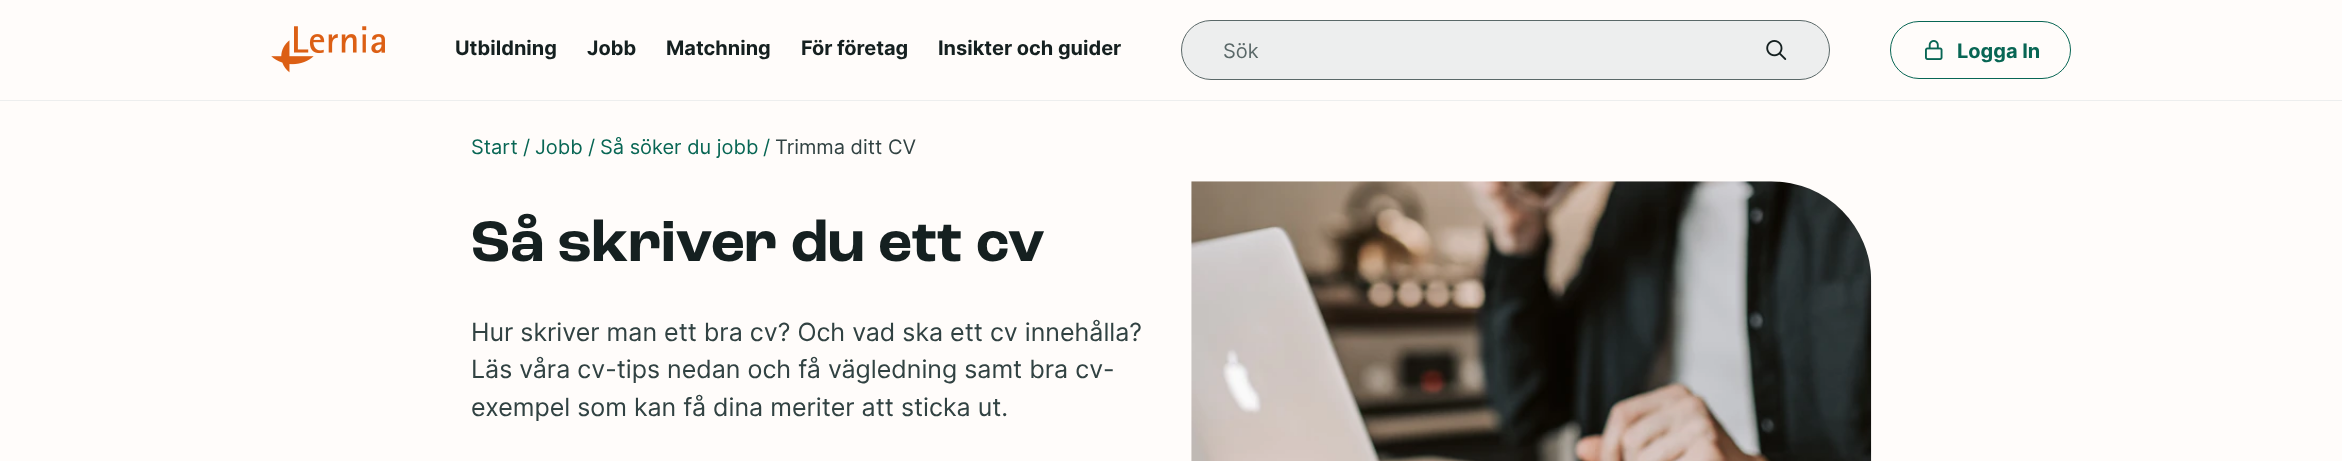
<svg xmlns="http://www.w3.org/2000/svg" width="2342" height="461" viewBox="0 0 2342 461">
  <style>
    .t1 { font: bold 20px Inter; fill: #152020; }
    .t2 { font: 20px Inter; fill: #5a6868; }
    .t3 { font: bold 20px Inter; fill: #086654; }
    .t4 { font: 20px Inter; fill: #086654; }
    .t5 { font: 20px Inter; fill: #314242; }
    .t6 { font: bold 60px 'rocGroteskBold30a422'; fill: #152020; }
    .t7 { font: 25px Inter; fill: #314242; }
  </style>
  <rect width="100%" height="100%" fill="#fffcfa"/>
  <rect x="0" y="100" width="2342" height="1" fill="#edeeee"/>
  <image x="271" y="26" width="114" height="47" href="images/1.png"/>
  <text x="455" y="55" class="t1">Utbildning</text>
  <text x="587" y="55" class="t1">Jobb</text>
  <text x="666" y="55" class="t1">Matchning</text>
  <text x="801" y="55" class="t1">För företag</text>
  <text x="938" y="55" class="t1">Insikter och guider</text>
  <rect x="1181.5" y="20.5" width="648" height="59" rx="29.5" fill="#edeeee" stroke="#5a6868"/>
  <text x="1223" y="58" class="t2">Sök</text>
  <image x="1766" y="40" width="21" height="20" href="images/2.png"/>
  <rect x="1890.5" y="21.5" width="180" height="57" rx="28.5" fill="none" stroke="#086654"/>
  <image x="1925" y="40" width="18" height="20" href="images/3.png"/>
  <text x="1957" y="58" class="t3">Logga In</text>
  <text x="471" y="154" class="t4">Start</text>
  <text x="523" y="154" class="t4">/</text>
  <text x="535" y="154" class="t4">Jobb</text>
  <text x="588" y="154" class="t4">/</text>
  <text x="600" y="154" class="t4">Så söker du jobb</text>
  <text x="763" y="154" class="t4">/</text>
  <text x="775" y="154" class="t5">Trimma ditt CV</text>
  <text x="471" y="261" class="t6">Så skriver du ett cv</text>
  <text x="471" y="341" class="t7">Hur skriver man ett bra cv? Och vad ska ett cv innehålla?</text>
  <text x="471" y="378" class="t7">Läs våra cv-tips nedan och få vägledning samt bra cv-</text>
  <text x="471" y="416" class="t7">exempel som kan få dina meriter att sticka ut.</text>
  <image x="1191" y="181" width="681" height="280" href="images/4.png"/>
</svg>
